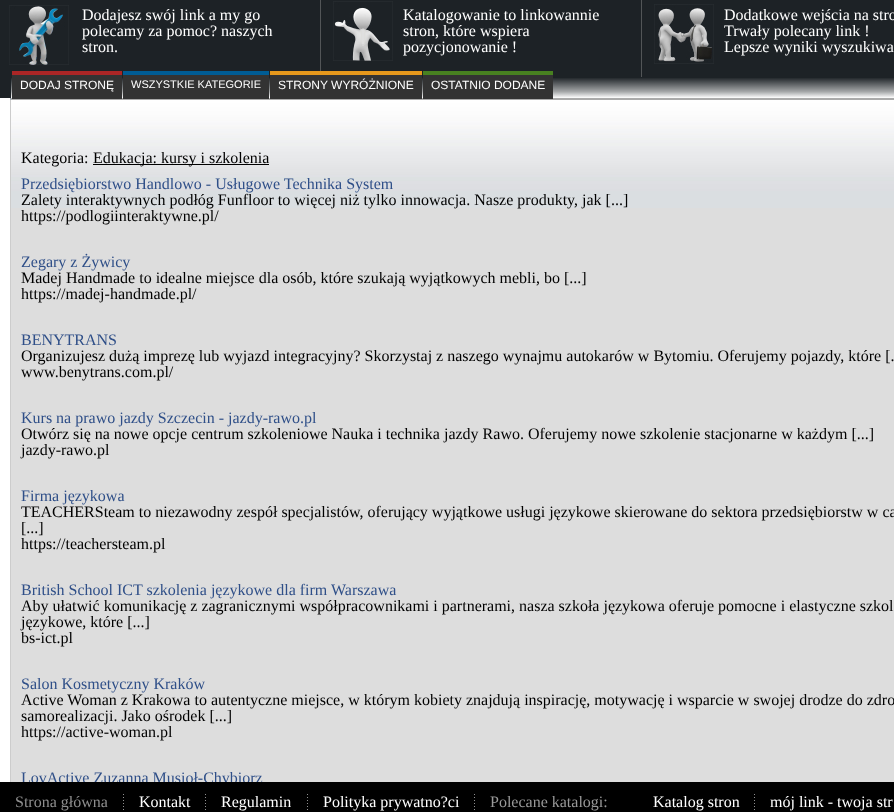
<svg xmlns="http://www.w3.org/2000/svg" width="894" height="812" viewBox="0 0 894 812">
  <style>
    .t1 { font: 16px Liberation Serif; fill: #fff; }
    .t2 { font: 12px Liberation Sans; fill: #fff; }
    .t3 { font: 11px Liberation Sans; fill: #fff; }
    .t4 { font: 16px Liberation Serif; fill: #000; }
    .t5 { font: 16px Liberation Serif; fill: #2f4f88; }
    .t6 { font: 16px Liberation Serif; fill: #8e8e8e; }
    .t7 { font: 16px Liberation Serif; fill: #999; }
  </style>
  <defs>
    <linearGradient id="g1" gradientUnits="userSpaceOnUse" x1="501" y1="66" x2="501" y2="98"><stop offset="0.35" stop-color="#fff" stop-opacity="0"/><stop offset="0.8" stop-color="#fff" stop-opacity="0.6"/><stop offset="1" stop-color="#fff"/></linearGradient>
  </defs>
  <rect width="100%" height="100%" fill="#fff"/>
  <rect x="0" y="0" width="894" height="98" fill="#1d2226"/>
  <image x="9" y="5" width="60" height="60" href="images/1.png"/>
  <text x="82" y="20" class="t1">Dodajesz swój link a my go</text>
  <text x="82" y="36" class="t1">polecamy za pomoc? naszych</text>
  <text x="82" y="52" class="t1">stron.</text>
  <rect x="320" y="0" width="1" height="77" fill="#525557"/>
  <image x="333" y="1" width="60" height="60" href="images/2.png"/>
  <text x="403" y="20" class="t1">Katalogowanie to linkowannie</text>
  <text x="403" y="36" class="t1">stron, które wspiera</text>
  <text x="403" y="52" class="t1">pozycjonowanie !</text>
  <rect x="641" y="0" width="1" height="77" fill="#525557"/>
  <image x="654" y="4" width="60" height="60" href="images/3.png"/>
  <text x="724" y="20" class="t1">Dodatkowe wejścia na stro</text>
  <text x="724" y="36" class="t1">Trwały polecany link !</text>
  <text x="724" y="52" class="t1">Lepsze wyniki wyszukiwa</text>
  <rect x="11" y="208" width="883" height="574" fill="#ddd"/>
  <image x="10" y="98" width="884" height="110" href="images/4.png"/>
  <path d="M10 98H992L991 100H11Z" fill="#aaa"/>
  <path d="M10 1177V98L11 100V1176Z" fill="#ccc"/>
  <rect x="11" y="78" width="883" height="20" fill="url(#g1)"/>
  <rect x="12" y="75" width="110" height="24" fill="#333"/>
  <rect x="12" y="71" width="110" height="4" fill="#ab2626"/>
  <text x="20" y="89" class="t2">DODAJ STRONĘ</text>
  <rect x="123" y="75" width="146" height="24" fill="#333"/>
  <rect x="123" y="71" width="146" height="4" fill="#005c94"/>
  <text x="131" y="88" class="t3">WSZYSTKIE KATEGORIE</text>
  <rect x="270" y="75" width="152" height="24" fill="#333"/>
  <rect x="270" y="71" width="152" height="4" fill="#e6981c"/>
  <text x="278" y="89" class="t2">STRONY WYRÓŻNIONE</text>
  <rect x="423" y="75" width="130" height="24" fill="#333"/>
  <rect x="423" y="71" width="130" height="4" fill="#488120"/>
  <text x="431" y="89" class="t2">OSTATNIO DODANE</text>
  <text x="21" y="163" class="t4">Kategoria:</text>
  <rect x="93" y="164" width="176" height="1" fill="#000"/>
  <text x="93" y="163" class="t4">Edukacja: kursy i szkolenia</text>
  <text x="21" y="189" class="t5">Przedsiębiorstwo Handlowo - Usługowe Technika System</text>
  <text x="21" y="205" class="t4">Zalety interaktywnych podłóg Funfloor to więcej niż tylko innowacja. Nasze produkty, jak [...]</text>
  <text x="21" y="221" class="t4">https://podlogiinteraktywne.pl/</text>
  <text x="21" y="267" class="t5">Zegary z Żywicy</text>
  <text x="21" y="283" class="t4">Madej Handmade to idealne miejsce dla osób, które szukają wyjątkowych mebli, bo [...]</text>
  <text x="21" y="299" class="t4">https://madej-handmade.pl/</text>
  <text x="21" y="345" class="t5">BENYTRANS</text>
  <text x="21" y="361" class="t4">Organizujesz dużą imprezę lub wyjazd integracyjny? Skorzystaj z naszego wynajmu autokarów w Bytomiu. Oferujemy pojazdy, które [.</text>
  <text x="21" y="377" class="t4">www.benytrans.com.pl/</text>
  <text x="21" y="423" class="t5">Kurs na prawo jazdy Szczecin - jazdy-rawo.pl</text>
  <text x="21" y="439" class="t4">Otwórz się na nowe opcje centrum szkoleniowe Nauka i technika jazdy Rawo. Oferujemy nowe szkolenie stacjonarne w każdym [...]</text>
  <text x="21" y="455" class="t4">jazdy-rawo.pl</text>
  <text x="21" y="501" class="t5">Firma językowa</text>
  <text x="21" y="517" class="t4">TEACHERSteam to niezawodny zespół specjalistów, oferujący wyjątkowe usługi językowe skierowane do sektora przedsiębiorstw w ca</text>
  <text x="21" y="533" class="t4">[...]</text>
  <text x="21" y="549" class="t4">https://teachersteam.pl</text>
  <text x="21" y="595" class="t5">British School ICT szkolenia językowe dla firm Warszawa</text>
  <text x="21" y="611" class="t4">Aby ułatwić komunikację z zagranicznymi współpracownikami i partnerami, nasza szkoła językowa oferuje pomocne i elastyczne szkol</text>
  <text x="21" y="627" class="t4">językowe, które [...]</text>
  <text x="21" y="643" class="t4">bs-ict.pl</text>
  <text x="21" y="689" class="t5">Salon Kosmetyczny Kraków</text>
  <text x="21" y="705" class="t4">Active Woman z Krakowa to autentyczne miejsce, w którym kobiety znajdują inspirację, motywację i wsparcie w swojej drodze do zdro</text>
  <text x="21" y="721" class="t4">samorealizacji. Jako ośrodek [...]</text>
  <text x="21" y="737" class="t4">https://active-woman.pl</text>
  <text x="21" y="783" class="t5">LovActive Zuzanna Musioł-Chybiorz</text>
  <rect x="0" y="782" width="894" height="30" fill="#000"/>
  <text x="15" y="807" class="t6">Strona główna</text>
  <image x="123" y="794" width="1" height="16" href="images/5.png"/>
  <text x="139" y="807" class="t1">Kontakt</text>
  <image x="205" y="794" width="1" height="16" href="images/5.png"/>
  <text x="221" y="807" class="t1">Regulamin</text>
  <image x="307" y="794" width="1" height="16" href="images/5.png"/>
  <text x="323" y="807" class="t1">Polityka prywatno?ci</text>
  <image x="474" y="794" width="1" height="16" href="images/5.png"/>
  <text x="490" y="807" class="t7">Polecane katalogi:</text>
  <text x="653" y="807" class="t1">Katalog stron</text>
  <image x="754" y="794" width="1" height="16" href="images/5.png"/>
  <text x="770" y="807" class="t1">mój link - twoja str</text>
</svg>
